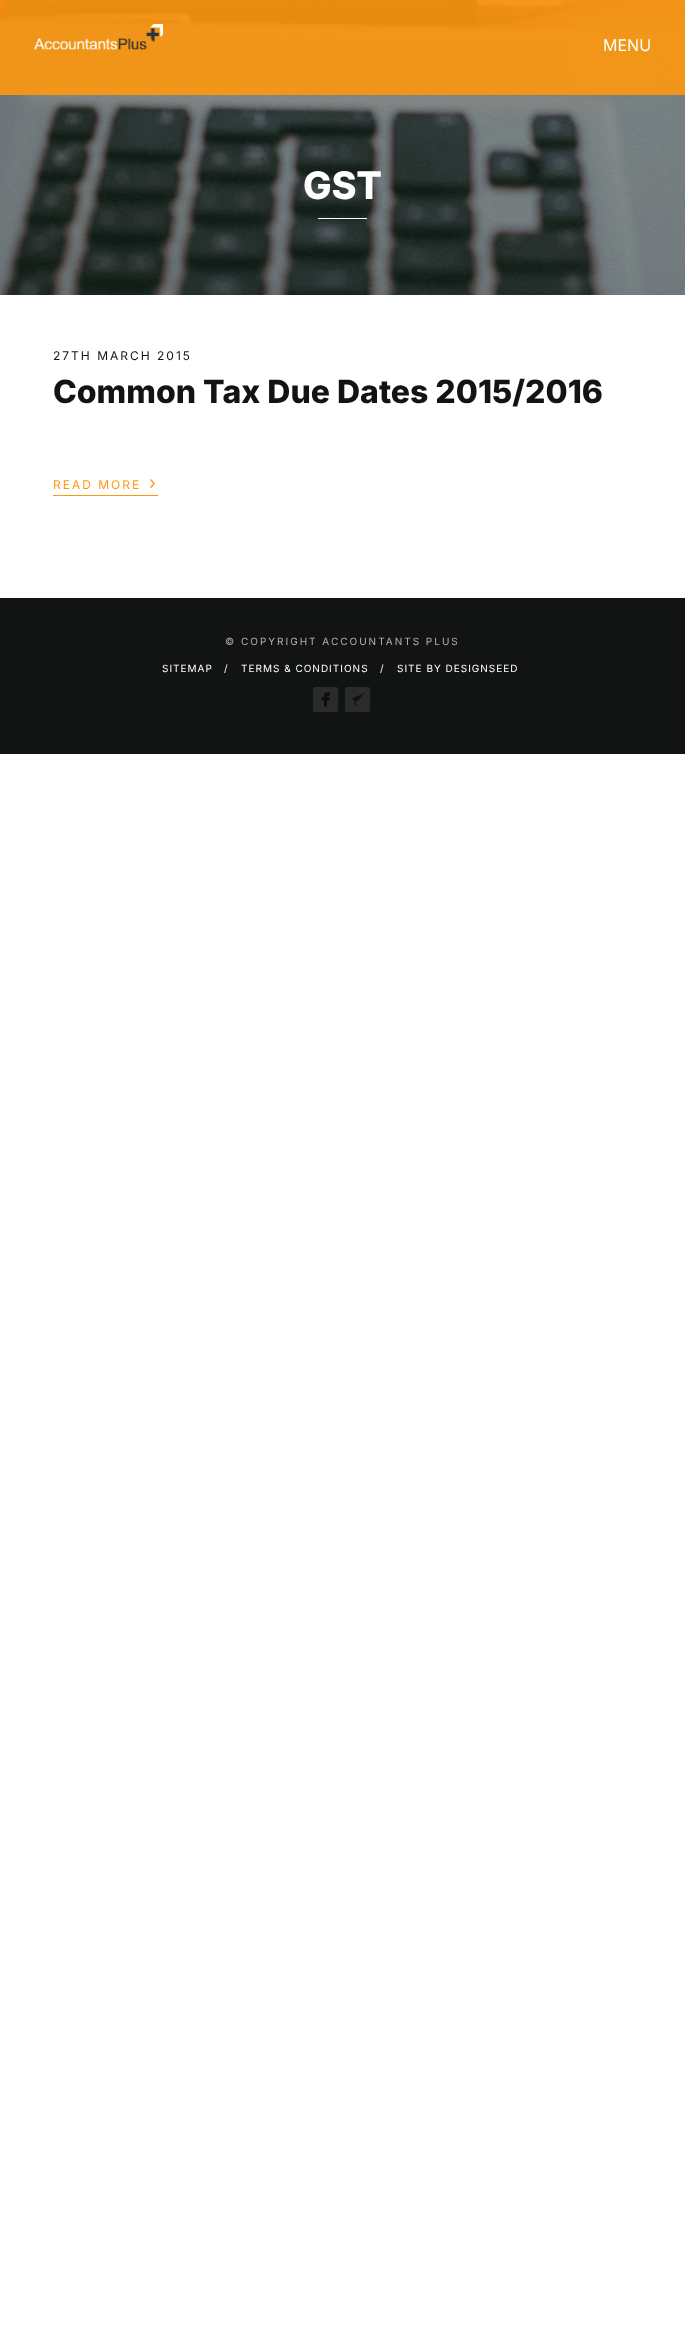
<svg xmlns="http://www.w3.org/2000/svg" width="685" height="2330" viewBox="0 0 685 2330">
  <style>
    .t1 { font: 16px Inter; fill: #fff; }
    .t2 { font: 800 38px Inter; fill: #fff; }
    .t3 { font: 12px Inter; letter-spacing: 2px; fill: #121313; }
    .t4 { font: 800 32px Inter; fill: #121313; }
    .t5 { font: 12px Inter; letter-spacing: 2px; fill: #ff980e; }
    .t6 { font: 18px Inter; letter-spacing: 2px; fill: #ff980e; }
    .t7 { font: 10px Inter; letter-spacing: 2px; fill: #b3b3b1; }
    .t8 { font: 10px Inter; letter-spacing: 1px; fill: #fff; }
    .t9 { font: 10px Inter; letter-spacing: 1px; fill: #f7f7f7; }
  </style>
  <rect width="100%" height="100%" fill="#fff"/>
  <rect x="0" y="0" width="685" height="295" fill="#1c1c1c"/>
  <image x="0" y="0" width="685" height="295" href="images/1.png"/>
  <rect x="0" y="0" width="685" height="95" fill="#ff980ee6"/>
  <image x="34" y="24" width="129" height="26" href="images/2.png"/>
  <text x="603" y="51" class="t1">MENU</text>
  <text x="303" y="199" class="t2">GST</text>
  <rect x="318" y="218" width="49" height="1" fill="#fff"/>
  <text x="53" y="360" class="t3">27TH MARCH 2015</text>
  <text x="53" y="403" class="t4">Common Tax Due Dates 2015/2016</text>
  <rect x="53" y="495" width="105" height="1" fill="#ff980e"/>
  <text x="53" y="489" class="t5">READ MORE</text>
  <text x="149" y="489" class="t6">›</text>
  <rect x="0" y="598" width="685" height="156" fill="#121313"/>
  <text x="225" y="645" class="t7">© COPYRIGHT ACCOUNTANTS PLUS</text>
  <text x="162" y="672" class="t8">SITEMAP</text>
  <text x="224" y="672" class="t9">/</text>
  <text x="241" y="672" class="t8">TERMS &amp; CONDITIONS</text>
  <text x="380" y="672" class="t9">/</text>
  <text x="397" y="672" class="t8">SITE BY DESIGNSEED</text>
  <rect x="313" y="687" width="25" height="25" rx="2" fill="#2a2b2b"/>
  <image x="321" y="692" width="9" height="15" href="images/3.png"/>
  <rect x="345" y="687" width="25" height="25" rx="2" fill="#2a2b2b"/>
  <image x="352" y="692" width="12" height="15" href="images/4.png"/>
</svg>
